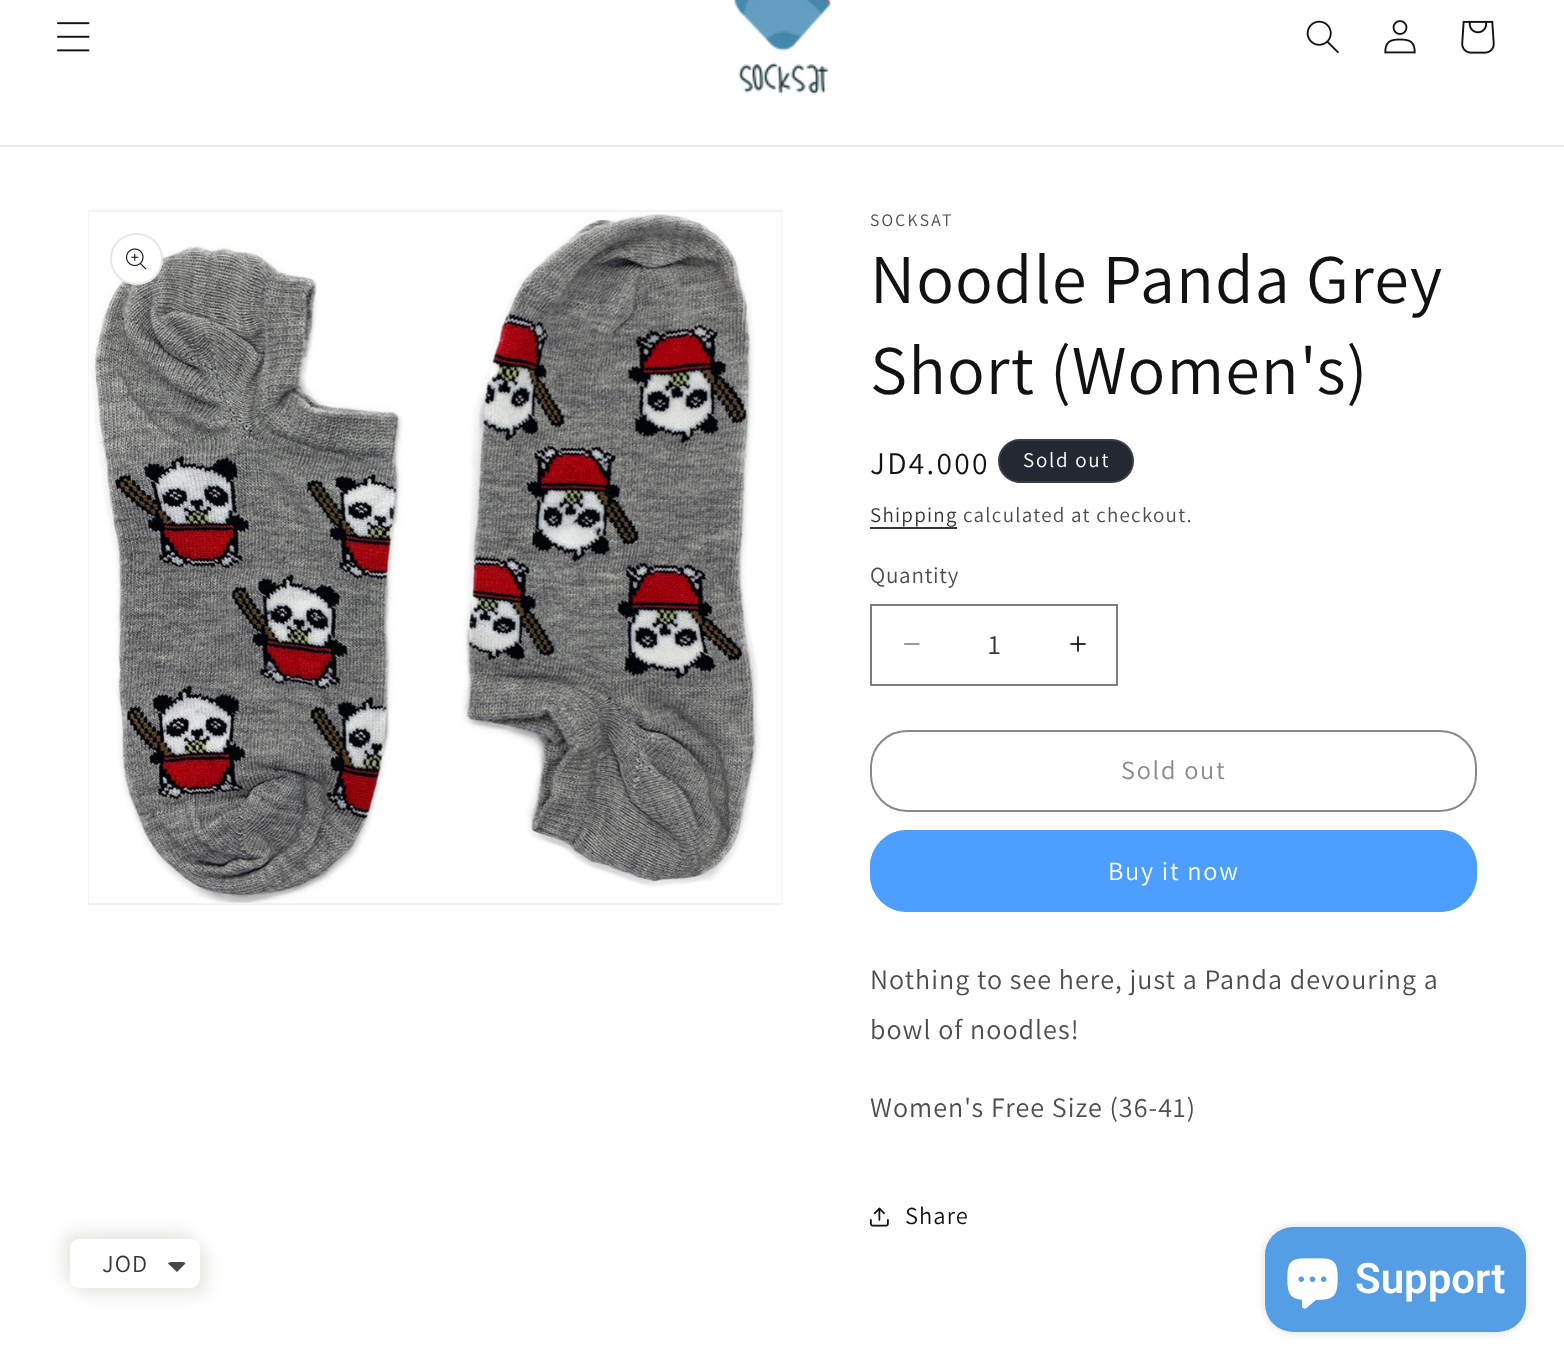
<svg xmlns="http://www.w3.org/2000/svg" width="1564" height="1368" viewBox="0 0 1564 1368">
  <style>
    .t1 { font: 17.5px Assistant; letter-spacing: 2.25px; fill: #4d4d4d; }
    .t2 { font: 70px Assistant; letter-spacing: 1.05px; fill: #121212; }
    .t3 { font: 31.5px Assistant; letter-spacing: 2.25px; fill: #121212; }
    .t4 { font: 21px Assistant; letter-spacing: 1.75px; fill: #fff; }
    .t5 { font: 21px Assistant; letter-spacing: 1.25px; fill: #363636; }
    .t6 { font: 21px Assistant; letter-spacing: 1.25px; fill: #4d4d4d; }
    .t7 { font: 23px Assistant; letter-spacing: 0.75px; fill: #4d4d4d; }
    .t8 { font: 28px Assistant; fill: #363636; }
    .t9 { font: 26.25px Assistant; letter-spacing: 1.75px; fill: #898989; }
    .t10 { font: 26.25px Assistant; letter-spacing: 1.75px; fill: #fff; }
    .t11 { font: 28px Assistant; letter-spacing: 1.05px; fill: #4d4d4d; }
    .t12 { font: 24.5px Assistant; letter-spacing: 1.05px; fill: #121212; }
    .t13 { font: 24.5px Assistant; letter-spacing: 1.05px; fill: #363636; }
    .t14 { font: 600 42px Roboto; fill: #fff; }
  </style>
  <rect width="100%" height="100%" fill="#fff"/>
  <rect x="0" y="145" width="1564" height="2" fill="#ececec"/>
  <image x="57" y="22" width="33" height="30" href="images/1.png"/>
  <image x="733" y="0" width="99" height="95" href="images/2.png"/>
  <image x="1306" y="20" width="33" height="34" href="images/3.png"/>
  <image x="1384" y="20" width="32" height="34" href="images/4.png"/>
  <image x="1461" y="20" width="34" height="34" href="images/5.png"/>
  <rect x="89" y="211" width="692" height="693" fill="none" stroke="#f3f3f3" stroke-width="2"/>
  <image x="89" y="212" width="692" height="691" href="images/6.png"/>
  <rect x="110" y="233" width="53" height="52" rx="26" fill="#fff"/>
  <rect x="111" y="234" width="51" height="50" rx="25" fill="none" stroke="#1212121a" stroke-width="2"/>
  <image x="126" y="248" width="21" height="22" href="images/7.png"/>
  <text x="870" y="226" class="t1">SOCKSAT</text>
  <text x="870" y="303" class="t2">Noodle Panda Grey</text>
  <text x="870" y="394" class="t2">Short (Women's)</text>
  <text x="870" y="474" class="t3">JD4.000</text>
  <rect x="998" y="439" width="136" height="44" rx="22" fill="#242833"/>
  <rect x="999" y="440" width="134" height="42" rx="21" fill="none" stroke="#ffffff1a" stroke-width="2"/>
  <text x="1023" y="467" class="t4">Sold out</text>
  <text x="870" y="522" class="t5">Shipping</text>
  <rect x="870" y="527" width="87" height="2" fill="#363636"/>
  <text x="963" y="522" class="t6">calculated at checkout.</text>
  <text x="870" y="583" class="t7">Quantity</text>
  <image x="904" y="643" width="16" height="2" href="images/8.png"/>
  <image x="1070" y="636" width="16" height="16" href="images/9.png"/>
  <rect x="871" y="605" width="246" height="80" fill="none" stroke="#7d7d7d" stroke-width="2"/>
  <text x="988" y="654" class="t8">1</text>
  <rect x="871" y="731" width="605" height="80" rx="36" fill="none" stroke="#898989" stroke-width="2"/>
  <text x="1121" y="779" class="t9">Sold out</text>
  <rect x="870" y="830" width="607" height="82" rx="37" fill="#4d9fff"/>
  <rect x="871" y="831" width="605" height="80" rx="36" fill="none" stroke="#4d9fff" stroke-width="2"/>
  <text x="1108" y="880" class="t10">Buy it now</text>
  <text x="870" y="989" class="t11">Nothing to see here, just a Panda devouring a</text>
  <text x="870" y="1039" class="t11">bowl of noodles!</text>
  <text x="870" y="1117" class="t11">Women's Free Size (36-41)</text>
  <image x="869" y="1207" width="20" height="20" href="images/10.png"/>
  <text x="905" y="1224" class="t12">Share</text>
  <rect x="63" y="1232" width="130" height="49" rx="9" fill="#e8e8e2" filter="blur(8px)"/>
  <rect x="77" y="1246" width="130" height="49" rx="9" fill="#e8e8e2" filter="blur(8px)"/>
  <rect x="70" y="1239" width="130" height="49" rx="9" fill="#fff"/>
  <text x="102" y="1272" class="t13">JOD</text>
  <path d="M171.5 1262H182C183.5 1262 185 1262.5 185.5 1263.5L177 1272L168 1263.5C168.5 1262.5 170 1262 171.5 1262Z" fill="#474942"/>
  <rect x="1265" y="1227" width="261" height="105" rx="28" fill="#00000026" filter="blur(4.5px)"/>
  <rect x="1265" y="1227" width="261" height="105" rx="28" fill="#559de4"/>
  <image x="1287" y="1258" width="51" height="51" href="images/11.png"/>
  <text x="1355" y="1293" class="t14">Support</text>
</svg>
